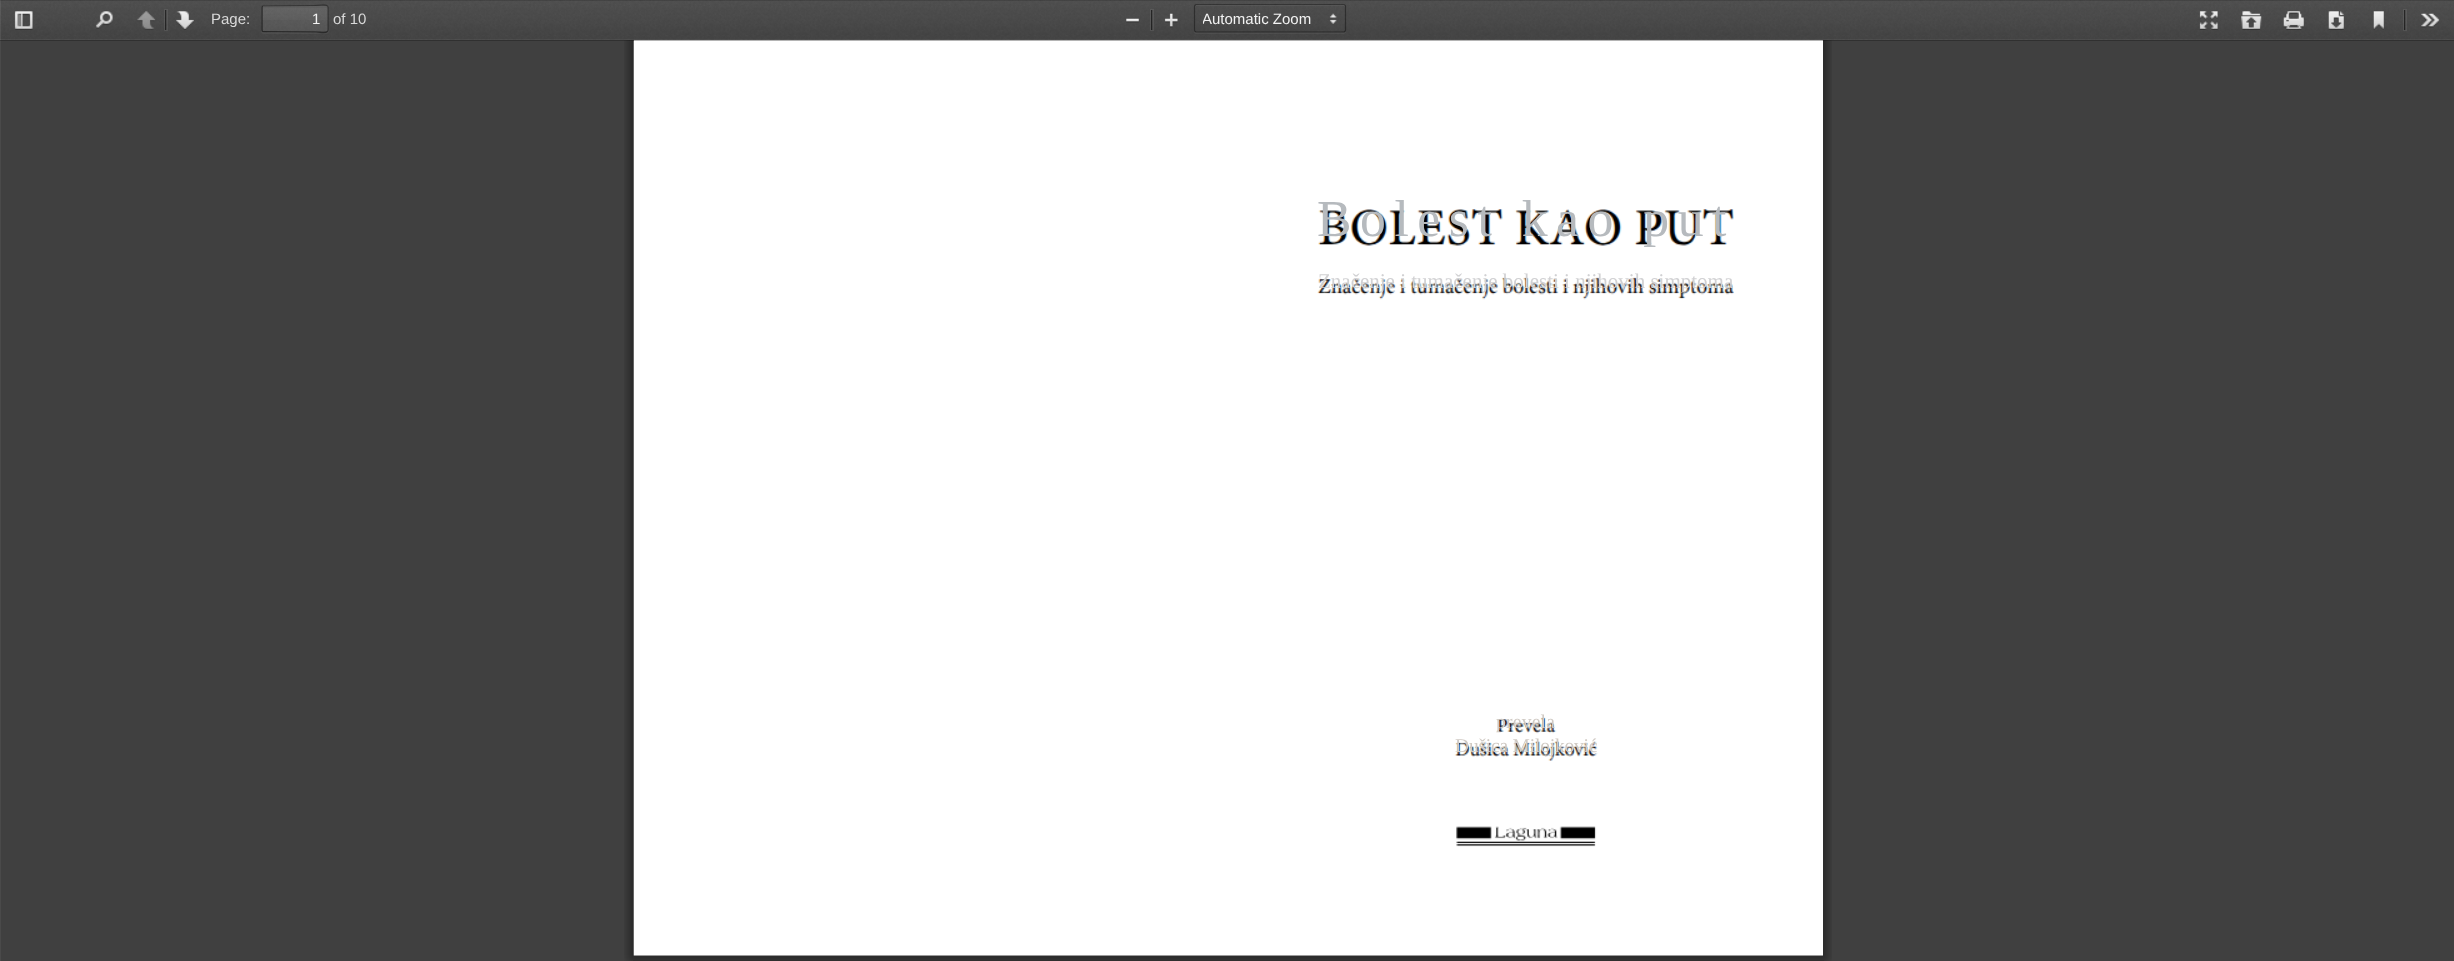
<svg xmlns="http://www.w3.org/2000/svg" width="2454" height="961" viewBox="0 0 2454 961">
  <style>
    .t1 { font: 15px Liberation Sans; fill: #d9d9d9; }
    .t2 { font: 15px Liberation Sans; fill: #f2f2f2; }
    .t3 { font: 51.75px Liberation Serif; letter-spacing: 8.5px; fill: #b6babe; }
    .t4 { font: 21px Liberation Serif; fill: #d1d1d3; }
    .t5 { font: 19.5px Liberation Serif; letter-spacing: 0.25px; fill: #d0cac4; }
    .t6 { font: 19.5px Liberation Serif; letter-spacing: -0.2px; fill: #d0cac4; }
  </style>
  <defs>
    <clipPath id="clip1"><rect x="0" y="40" width="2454" height="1"/></clipPath>
    <linearGradient id="g1" gradientUnits="userSpaceOnUse" x1="295" y1="6.2" x2="295" y2="31"><stop offset="0" stop-color="#fff" stop-opacity="0.05"/><stop offset="1" stop-color="#fff" stop-opacity="0"/></linearGradient>
    <clipPath id="clip2"><rect x="1203" y="9" width="147" height="20"/></clipPath>
  </defs>
  <rect width="100%" height="100%" fill="#404040"/>
  <rect x="0" y="40" width="1" height="921" fill="#4a4a4a"/>
  <rect x="634" y="40" width="1189" height="1" fill="#fff"/>
  <image x="624" y="40" width="1208" height="921" href="images/15.png"/>
  <image x="633" y="40" width="1190" height="916" href="images/16.png"/>
  <g clip-path="url(#clip1)">
    <rect x="0" y="1" width="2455" height="40" fill="#0000001a" filter="blur(0.5px)"/>
  </g>
  <rect x="0" y="40" width="2454" height="1" fill="#00000026"/>
  <image x="0" y="0" width="2454" height="40" href="images/1.png"/>
  <rect x="0" y="39" width="2454" height="1" fill="#ffffff0d"/>
  <rect x="0" y="0" width="2454" height="1" fill="#00000026"/>
  <rect x="0" y="0" width="1" height="40" fill="#ffffff14"/>
  <image x="14" y="11" width="19" height="19" href="images/2.png"/>
  <image x="96" y="11" width="17" height="18" href="images/3.png"/>
  <image x="137" y="11" width="19" height="19" href="images/4.png"/>
  <rect x="164.5" y="9.5" width="3" height="21" fill="none" stroke="#ffffff14"/>
  <rect x="165" y="10" width="1" height="20" fill="#00000080"/>
  <image x="176" y="11" width="18" height="19" href="images/5.png"/>
  <text x="211" y="24" class="t1">Page:</text>
  <path d="M261 7V24C261 36 260 34 274 34H316C330 34 329 36 329 24V7V26C329 35 326 32 316 32H274C264 32 261 35 261 26Z" fill="#ffffff0d"/>
  <rect x="263" y="6" width="65" height="25" fill="#ffffff17"/>
  <rect x="263" y="6" width="65" height="14" fill="url(#g1)"/>
  <path d="M264 8H326C327 8 328 8 328 9C328 3 324 6 316 6H264C263 6 263 7 263 8Z" fill="#0000000d"/>
  <path d="M262.5 6L316 5.5C320 5.5 325 3.5 327.5 6" fill="none" stroke="#00000052" stroke-width="1.2"/>
  <path d="M327.5 6L328 7.5V30L327.5 31.5" fill="none" stroke="#00000061" stroke-width="1.2"/>
  <path d="M327.5 31.5C325 34 320 32 316 32L262.5 31.5" fill="none" stroke="#0000006b" stroke-width="1.2"/>
  <path d="M262.5 31.5L262 30V7.5L262.5 6" fill="none" stroke="#00000061" stroke-width="1.2"/>
  <text x="312" y="24" class="t2">1</text>
  <text x="333" y="24" class="t1">of 10</text>
  <image x="1126" y="18" width="13" height="5" href="images/6.png"/>
  <rect x="1150.5" y="9.5" width="3" height="21" fill="none" stroke="#ffffff14"/>
  <rect x="1151" y="10" width="1" height="20" fill="#00000080"/>
  <image x="1164" y="13" width="14" height="15" href="images/7.png"/>
  <path d="M1194 31C1194 33 1195 34 1196 34H1344C1345 34 1346 33 1346 31C1346 32 1345 32 1344 32H1196C1195 32 1194 32 1194 31Z" fill="#ffffff0d"/>
  <image x="1329" y="13" width="8" height="11" href="images/8.png"/>
  <path d="M1196 6H1344L1345 8C1345 7 1345 5 1344 5H1196C1195 6 1195 7 1195 8Z" fill="#ffffff0d"/>
  <path d="M1195 5L1196 4.5H1344L1345 5" fill="none" stroke="#00000052" stroke-width="1.2"/>
  <path d="M1345 5L1345.5 6V30L1345 31.5" fill="none" stroke="#00000061" stroke-width="1.2"/>
  <path d="M1345 31.5L1344 32H1196L1195 31.5" fill="none" stroke="#0000006b" stroke-width="1.2"/>
  <path d="M1195 31.5L1194.5 30V6.5L1195 5" fill="none" stroke="#00000061" stroke-width="1.2"/>
  <g clip-path="url(#clip2)">
    <text x="1202" y="24" class="t2">Automatic Zoom</text>
  </g>
  <image x="2199" y="11" width="19" height="19" href="images/9.png"/>
  <image x="2241" y="11" width="21" height="19" href="images/10.png"/>
  <image x="2283" y="11" width="21" height="19" href="images/11.png"/>
  <image x="2328" y="11" width="16" height="19" href="images/12.png"/>
  <image x="2373" y="11" width="11" height="19" href="images/13.png"/>
  <rect x="2403.5" y="9.5" width="3" height="21" fill="none" stroke="#ffffff14"/>
  <rect x="2404" y="10" width="1" height="20" fill="#00000080"/>
  <image x="2421" y="13" width="19" height="15" href="images/14.png"/>
  <text x="1317" y="236" class="t3">Bolest kao put</text>
  <text x="1318" y="288" class="t4">Značenje i tumačenje bolesti i njihovih simptoma</text>
  <text x="1496" y="728" class="t5">prevela</text>
  <text x="1455" y="752" class="t6">Dušica Milojković</text>
  <rect x="633" y="960" width="1191" height="1" fill="#2f2f2f"/>
</svg>
